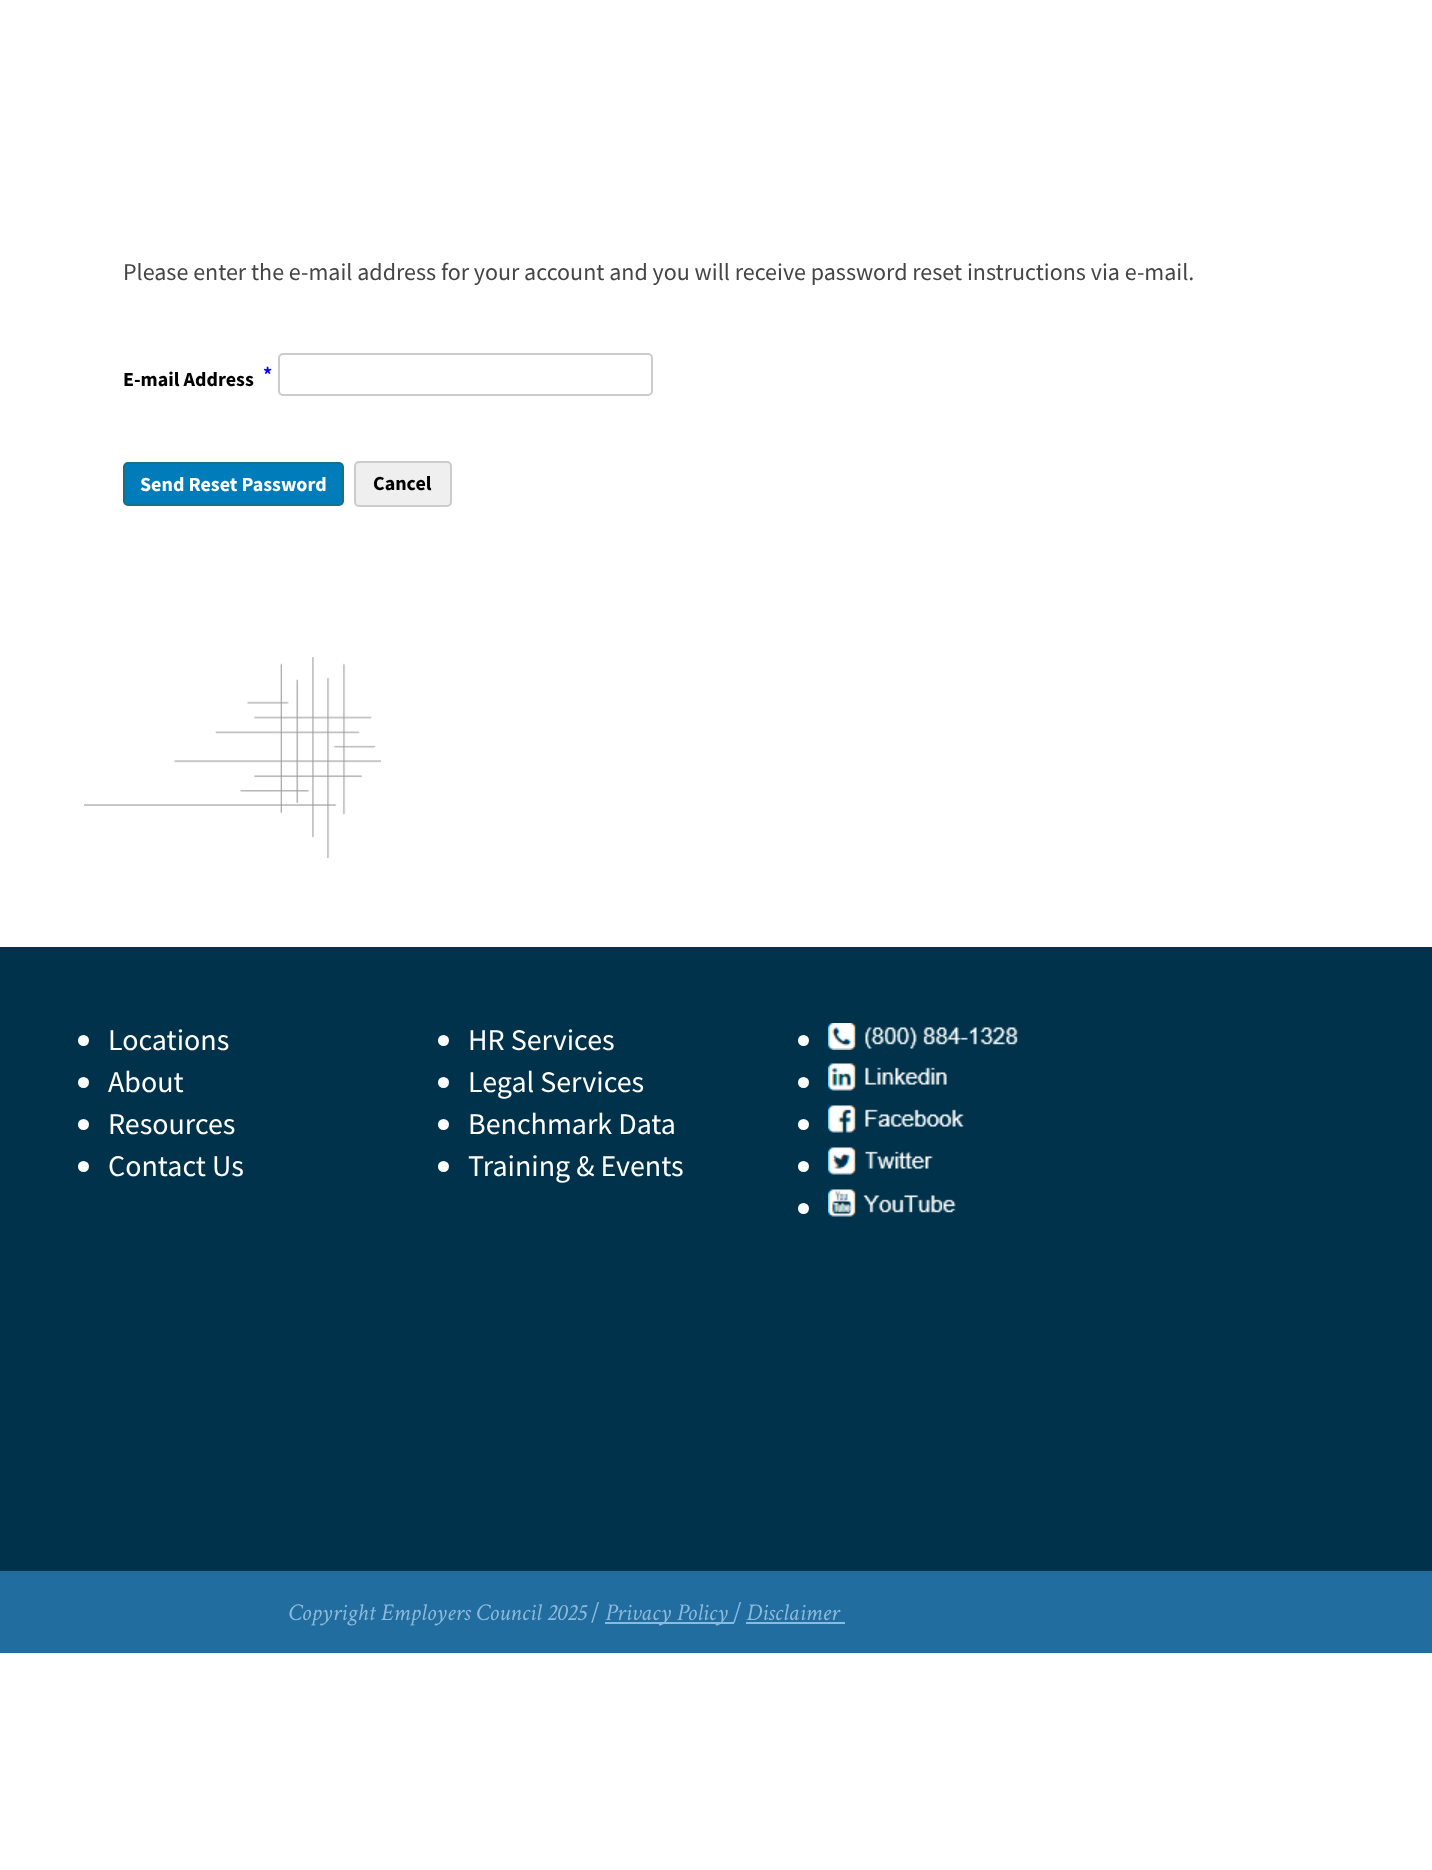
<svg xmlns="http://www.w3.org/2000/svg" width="1432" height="1870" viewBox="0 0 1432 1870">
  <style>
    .t1 { font: 24px Source Sans Pro; fill: #454545; }
    .t2 { font: bold 20px Source Sans Pro; fill: #00f; }
    .t3 { font: bold 20px Source Sans Pro; fill: #000; }
    .t4 { font: bold 20px Source Sans Pro; fill: #fff; }
    .t5 { font: 30px Source Sans Pro; fill: #fff; }
    .t6 { font: italic 24px Crimson Text; fill: #8db9da; }
    .t7 { font: 24px Source Sans Pro; fill: #8db9da; }
  </style>
  <rect width="100%" height="100%" fill="#fff"/>
  <text x="123" y="280" class="t1">Please enter the e-mail address for your account and you will receive password reset instructions via e-mail.</text>
  <text x="263" y="381" class="t2">*</text>
  <rect x="279" y="354" width="373" height="41" rx="4" fill="none" stroke="#ccc" stroke-width="2"/>
  <text x="123" y="386" class="t3">E-mail Address</text>
  <rect x="124" y="463" width="219" height="42" rx="4" fill="#007cba" stroke="#167188" stroke-width="2"/>
  <text x="140" y="491" class="t4">Send Reset Password</text>
  <rect x="355" y="462" width="96" height="44" rx="4" fill="#efefef" stroke="#ccc" stroke-width="2"/>
  <text x="373" y="490" class="t3">Cancel</text>
  <image x="84" y="657" width="297" height="201" href="images/1.png"/>
  <rect x="0" y="947" width="1432" height="624" fill="#00334b"/>
  <circle cx="83.5" cy="1040.5" r="5.5" fill="#fff"/>
  <text x="108" y="1050" class="t5">Locations</text>
  <circle cx="83.5" cy="1082.5" r="5.5" fill="#fff"/>
  <text x="108" y="1092" class="t5">About</text>
  <circle cx="83.5" cy="1124.5" r="5.5" fill="#fff"/>
  <text x="108" y="1134" class="t5">Resources</text>
  <circle cx="83.5" cy="1166.5" r="5.5" fill="#fff"/>
  <text x="108" y="1176" class="t5">Contact Us</text>
  <circle cx="443.5" cy="1040.5" r="5.5" fill="#fff"/>
  <text x="468" y="1050" class="t5">HR Services</text>
  <circle cx="443.5" cy="1082.5" r="5.5" fill="#fff"/>
  <text x="468" y="1092" class="t5">Legal Services</text>
  <circle cx="443.5" cy="1124.5" r="5.5" fill="#fff"/>
  <text x="468" y="1134" class="t5">Benchmark Data</text>
  <circle cx="443.5" cy="1166.5" r="5.5" fill="#fff"/>
  <text x="468" y="1176" class="t5">Training &amp; Events</text>
  <circle cx="803.5" cy="1040.5" r="5.5" fill="#fff"/>
  <image x="828" y="1023" width="190" height="27" href="images/2.png"/>
  <circle cx="803.5" cy="1082.5" r="5.5" fill="#fff"/>
  <image x="828" y="1063" width="119" height="28" href="images/3.png"/>
  <circle cx="803.5" cy="1124.5" r="5.5" fill="#fff"/>
  <image x="828" y="1105" width="136" height="28" href="images/4.png"/>
  <circle cx="803.5" cy="1166.5" r="5.5" fill="#fff"/>
  <image x="828" y="1147" width="105" height="28" href="images/5.png"/>
  <circle cx="803.5" cy="1208.5" r="5.5" fill="#fff"/>
  <image x="828" y="1189" width="128" height="28" href="images/6.png"/>
  <rect x="0" y="1571" width="1432" height="82" fill="#216d9f"/>
  <text x="288" y="1620" class="t6">Copyright Employers Council 2025</text>
  <text x="591" y="1619" class="t7">/</text>
  <rect x="605" y="1622" width="129" height="2" fill="#8db9da"/>
  <text x="605" y="1620" class="t6">Privacy Policy</text>
  <text x="733" y="1619" class="t7">/</text>
  <text x="746" y="1620" class="t6">Disclaimer</text>
  <rect x="746" y="1622" width="99" height="2" fill="#8db9da"/>
</svg>
